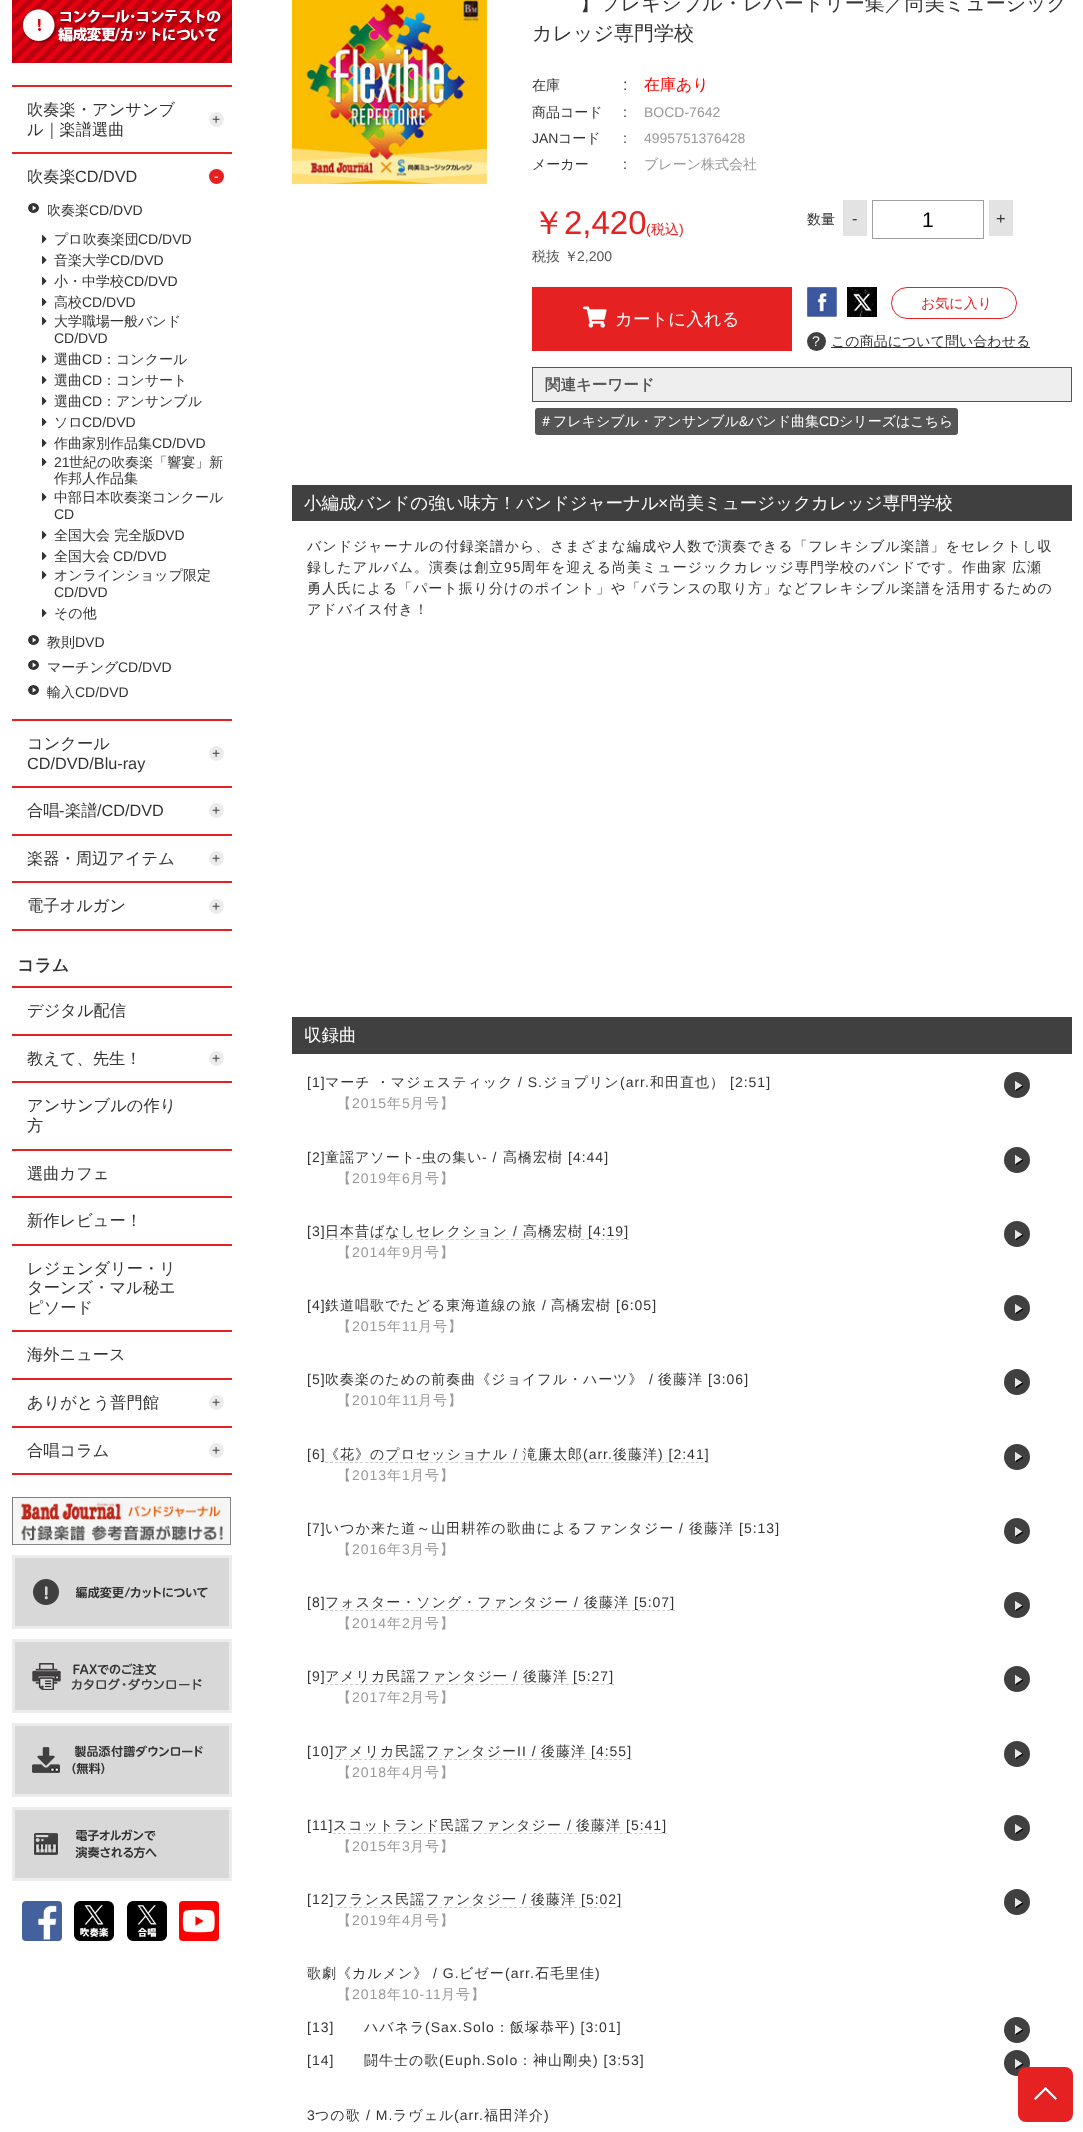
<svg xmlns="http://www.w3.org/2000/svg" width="1083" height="2132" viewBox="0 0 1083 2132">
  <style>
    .t1 { font: 500 16.25px WenQuanYi Zen Hei; fill: #333; }
    .t2 { font: 14px Liberation Sans; fill: #3f3f3f; }
    .t3 { font: 16.25px Liberation Sans; fill: #333; }
    .t4 { font: 14px Liberation Sans; fill: #fff; }
    .t5 { font: 500 14px WenQuanYi Zen Hei; fill: #333; }
    .t6 { font: 14px Liberation Sans; fill: #333; }
    .t7 { font: bold 17px WenQuanYi Zen Hei; fill: #333; }
    .t8 { font: 500 20px WenQuanYi Zen Hei; fill: #333; }
    .t9 { font: 16px Liberation Sans; fill: #333; }
    .t10 { font: 500 16px WenQuanYi Zen Hei; fill: #f00; }
    .t11 { font: 14px Liberation Sans; fill: #999; }
    .t12 { font: 500 14px WenQuanYi Zen Hei; fill: #999; }
    .t13 { font: 500 33px WenQuanYi Zen Hei; fill: #e52121; }
    .t14 { font: 33px Liberation Sans; fill: #e52121; }
    .t15 { font: 14px Liberation Sans; fill: #e52121; }
    .t16 { font: 500 14px WenQuanYi Zen Hei; fill: #e52121; }
    .t17 { font: 500 14px WenQuanYi Zen Hei; fill: #555; }
    .t18 { font: 14px Liberation Sans; fill: #555; }
    .t19 { font: 21px Liberation Sans; fill: #000; }
    .t20 { font: 500 17.5px WenQuanYi Zen Hei; fill: #fff; }
    .t21 { font: bold 15.5px WenQuanYi Zen Hei; fill: #555; }
    .t22 { font: 500 14px WenQuanYi Zen Hei; fill: #fff; }
    .t23 { font: 17.5px Liberation Sans; fill: #fff; }
    .t24 { font: 500 14px WenQuanYi Zen Hei; letter-spacing: 1px; fill: #333; }
    .t25 { font: 14px Liberation Sans; letter-spacing: 1px; fill: #333; }
    .t26 { font: 500 14px WenQuanYi Zen Hei; letter-spacing: 1px; fill: #999; }
    .t27 { font: 14px Liberation Sans; letter-spacing: 1px; fill: #999; }
  </style>
  <rect width="100%" height="100%" fill="#fff"/>
  <image x="12" y="0" width="220" height="63" href="images/1.png"/>
  <rect x="12" y="85" width="220" height="2" fill="#e52121"/>
  <rect x="12" y="152" width="220" height="2" fill="#e52121"/>
  <text x="27" y="115" class="t1">吹奏楽・アンサンブ</text>
  <text x="27" y="135" class="t1">ル｜楽譜選曲</text>
  <circle cx="216.5" cy="119.5" r="7.5" fill="#ececec"/>
  <text x="212" y="124" class="t2">+</text>
  <rect x="12" y="719" width="220" height="2" fill="#e52121"/>
  <text x="27" y="182" class="t1">吹奏楽</text>
  <text x="75" y="182" class="t3">CD/DVD</text>
  <circle cx="216.5" cy="176.5" r="7.5" fill="#e52121"/>
  <text x="214" y="181" class="t4">-</text>
  <image x="28" y="203" width="11" height="10" href="images/2.png"/>
  <text x="47" y="215" class="t5">吹奏楽</text>
  <text x="89" y="215" class="t6">CD/DVD</text>
  <image x="42" y="235" width="5" height="8" href="images/3.png"/>
  <text x="54" y="244" class="t5">プロ吹奏楽団</text>
  <text x="138" y="244" class="t6">CD/DVD</text>
  <image x="42" y="256" width="5" height="8" href="images/3.png"/>
  <text x="54" y="265" class="t5">音楽大学</text>
  <text x="110" y="265" class="t6">CD/DVD</text>
  <image x="42" y="277" width="5" height="8" href="images/3.png"/>
  <text x="54" y="286" class="t5">小・中学校</text>
  <text x="124" y="286" class="t6">CD/DVD</text>
  <image x="42" y="298" width="5" height="8" href="images/3.png"/>
  <text x="54" y="307" class="t5">高校</text>
  <text x="82" y="307" class="t6">CD/DVD</text>
  <image x="42" y="317" width="5" height="8" href="images/3.png"/>
  <text x="54" y="326" class="t5">大学職場一般バンド</text>
  <text x="54" y="343" class="t6">CD/DVD</text>
  <image x="42" y="355" width="5" height="8" href="images/3.png"/>
  <text x="54" y="364" class="t5">選曲</text>
  <text x="82" y="364" class="t6">CD</text>
  <text x="102" y="364" class="t5">：コンクール</text>
  <image x="42" y="376" width="5" height="8" href="images/3.png"/>
  <text x="54" y="385" class="t5">選曲</text>
  <text x="82" y="385" class="t6">CD</text>
  <text x="102" y="385" class="t5">：コンサート</text>
  <image x="42" y="397" width="5" height="8" href="images/3.png"/>
  <text x="54" y="406" class="t5">選曲</text>
  <text x="82" y="406" class="t6">CD</text>
  <text x="102" y="406" class="t5">：アンサンブル</text>
  <image x="42" y="418" width="5" height="8" href="images/3.png"/>
  <text x="54" y="427" class="t5">ソロ</text>
  <text x="82" y="427" class="t6">CD/DVD</text>
  <image x="42" y="439" width="5" height="8" href="images/3.png"/>
  <text x="54" y="448" class="t5">作曲家別作品集</text>
  <text x="152" y="448" class="t6">CD/DVD</text>
  <image x="42" y="458" width="5" height="8" href="images/3.png"/>
  <text x="54" y="467" class="t6">21</text>
  <text x="69" y="467" class="t5">世紀の吹奏楽「響宴」新</text>
  <text x="54" y="483" class="t5">作邦人作品集</text>
  <image x="42" y="493" width="5" height="8" href="images/3.png"/>
  <text x="54" y="502" class="t5">中部日本吹奏楽コンクール</text>
  <text x="54" y="519" class="t6">CD</text>
  <image x="42" y="531" width="5" height="8" href="images/3.png"/>
  <text x="54" y="540" class="t5">全国大会 完全版</text>
  <text x="155" y="540" class="t6">DVD</text>
  <image x="42" y="552" width="5" height="8" href="images/3.png"/>
  <text x="54" y="561" class="t5">全国大会</text>
  <text x="113" y="561" class="t6">CD/DVD</text>
  <image x="42" y="571" width="5" height="8" href="images/3.png"/>
  <text x="54" y="580" class="t5">オンラインショップ限定</text>
  <text x="54" y="597" class="t6">CD/DVD</text>
  <image x="42" y="609" width="5" height="8" href="images/3.png"/>
  <text x="54" y="618" class="t5">その他</text>
  <image x="28" y="635" width="11" height="10" href="images/2.png"/>
  <text x="47" y="647" class="t5">教則</text>
  <text x="75" y="647" class="t6">DVD</text>
  <image x="28" y="660" width="11" height="10" href="images/2.png"/>
  <text x="47" y="672" class="t5">マーチング</text>
  <text x="118" y="672" class="t6">CD/DVD</text>
  <image x="28" y="685" width="11" height="10" href="images/2.png"/>
  <text x="47" y="697" class="t5">輸入</text>
  <text x="75" y="697" class="t6">CD/DVD</text>
  <rect x="12" y="786" width="220" height="2" fill="#e52121"/>
  <text x="27" y="749" class="t1">コンクール</text>
  <text x="27" y="769" class="t3">CD/DVD/Blu-ray</text>
  <circle cx="216.5" cy="753.5" r="7.5" fill="#ececec"/>
  <text x="212" y="758" class="t2">+</text>
  <rect x="12" y="834" width="220" height="2" fill="#e52121"/>
  <text x="27" y="816" class="t1">合唱</text>
  <text x="59" y="816" class="t3">-</text>
  <text x="65" y="816" class="t1">楽譜</text>
  <text x="97" y="816" class="t3">/CD/DVD</text>
  <circle cx="216.5" cy="810.5" r="7.5" fill="#ececec"/>
  <text x="212" y="815" class="t2">+</text>
  <rect x="12" y="881" width="220" height="2" fill="#e52121"/>
  <text x="27" y="864" class="t1">楽器・周辺アイテム</text>
  <circle cx="216.5" cy="858.5" r="7.5" fill="#ececec"/>
  <text x="212" y="863" class="t2">+</text>
  <rect x="12" y="929" width="220" height="2" fill="#e52121"/>
  <text x="27" y="911" class="t1">電子オルガン</text>
  <circle cx="216.5" cy="906.5" r="7.5" fill="#ececec"/>
  <text x="212" y="911" class="t2">+</text>
  <text x="17" y="971" class="t7">コラム</text>
  <rect x="12" y="986" width="220" height="2" fill="#e52121"/>
  <rect x="12" y="1034" width="220" height="2" fill="#e52121"/>
  <text x="27" y="1016" class="t1">デジタル配信</text>
  <rect x="12" y="1081" width="220" height="2" fill="#e52121"/>
  <text x="27" y="1064" class="t1">教えて、先生！</text>
  <circle cx="216.5" cy="1058.5" r="7.5" fill="#ececec"/>
  <text x="212" y="1063" class="t2">+</text>
  <rect x="12" y="1149" width="220" height="2" fill="#e52121"/>
  <text x="27" y="1111" class="t1">アンサンブルの作り</text>
  <text x="27" y="1131" class="t1">方</text>
  <rect x="12" y="1196" width="220" height="2" fill="#e52121"/>
  <text x="27" y="1179" class="t1">選曲カフェ</text>
  <rect x="12" y="1244" width="220" height="2" fill="#e52121"/>
  <text x="27" y="1226" class="t1">新作レビュー！</text>
  <rect x="12" y="1330" width="220" height="2" fill="#e52121"/>
  <text x="27" y="1274" class="t1">レジェンダリー・リ</text>
  <text x="27" y="1293" class="t1">ターンズ・マル秘エ</text>
  <text x="27" y="1313" class="t1">ピソード</text>
  <rect x="12" y="1378" width="220" height="2" fill="#e52121"/>
  <text x="27" y="1360" class="t1">海外ニュース</text>
  <rect x="12" y="1426" width="220" height="2" fill="#e52121"/>
  <text x="27" y="1408" class="t1">ありがとう普門館</text>
  <circle cx="216.5" cy="1402.5" r="7.5" fill="#ececec"/>
  <text x="212" y="1407" class="t2">+</text>
  <rect x="12" y="1473" width="220" height="2" fill="#e52121"/>
  <text x="27" y="1456" class="t1">合唱コラム</text>
  <circle cx="216.5" cy="1450.5" r="7.5" fill="#ececec"/>
  <text x="212" y="1455" class="t2">+</text>
  <image x="12" y="1497" width="219" height="48" href="images/4.png"/>
  <image x="12" y="1555" width="220" height="74" href="images/5.png"/>
  <image x="12" y="1639" width="220" height="74" href="images/6.png"/>
  <image x="12" y="1723" width="220" height="74" href="images/7.png"/>
  <image x="12" y="1807" width="220" height="74" href="images/8.png"/>
  <image x="22" y="1901" width="40" height="40" href="images/9.png"/>
  <image x="74" y="1901" width="40" height="40" href="images/10.png"/>
  <image x="127" y="1901" width="40" height="40" href="images/11.png"/>
  <image x="179" y="1901" width="40" height="40" href="images/12.png"/>
  <image x="292" y="0" width="195" height="184" href="images/13.png"/>
  <text x="580" y="10" class="t8">】フレキシブル・レパートリー集／尚美ミュージック</text>
  <text x="532" y="40" class="t8">カレッジ専門学校</text>
  <text x="532" y="90" class="t5">在庫</text>
  <text x="623" y="90" class="t9">:</text>
  <text x="644" y="90" class="t10">在庫あり</text>
  <text x="532" y="117" class="t5">商品コード</text>
  <text x="623" y="117" class="t6">:</text>
  <text x="644" y="117" class="t11">BOCD-7642</text>
  <text x="532" y="143" class="t6">JAN</text>
  <text x="558" y="143" class="t5">コード</text>
  <text x="623" y="143" class="t6">:</text>
  <text x="644" y="143" class="t11">4995751376428</text>
  <text x="532" y="169" class="t5">メーカー</text>
  <text x="623" y="169" class="t6">:</text>
  <text x="644" y="169" class="t12">ブレーン株式会社</text>
  <text x="532" y="234" class="t13">￥</text>
  <text x="564" y="234" class="t14">2,420</text>
  <text x="646" y="234" class="t15">(</text>
  <text x="651" y="234" class="t16">税込</text>
  <text x="679" y="234" class="t15">)</text>
  <text x="532" y="261" class="t17">税抜 ￥</text>
  <text x="577" y="261" class="t18">2,200</text>
  <text x="807" y="224" class="t5">数量</text>
  <rect x="843" y="200" width="24" height="36" fill="#e3e3e3"/>
  <text x="852" y="224" class="t3">-</text>
  <rect x="872.5" y="200.5" width="111" height="38" fill="none" stroke="#9f9f9f"/>
  <text x="922" y="227" class="t19">1</text>
  <rect x="989" y="200" width="24" height="36" fill="#e3e3e3"/>
  <text x="996" y="224" class="t3">+</text>
  <rect x="532" y="287" width="260" height="64" fill="#e52121"/>
  <image x="583" y="306" width="24" height="22" href="images/14.png"/>
  <text x="615" y="325" class="t20">カートに入れる</text>
  <image x="807" y="287" width="30" height="30" href="images/15.png"/>
  <image x="847" y="287" width="30" height="30" href="images/16.png"/>
  <rect x="891.5" y="287.5" width="125" height="31" rx="15.5" fill="none" stroke="#e52121"/>
  <text x="921" y="308" class="t16">お気に入り</text>
  <circle cx="816.5" cy="341.5" r="9.5" fill="#404040"/>
  <text x="812" y="346" class="t4">?</text>
  <rect x="831" y="347" width="199" height="1" fill="#333"/>
  <text x="831" y="346" class="t5">この商品について問い合わせる</text>
  <rect x="532.5" y="367.5" width="539" height="34" fill="#eee" stroke="#555"/>
  <text x="545" y="390" class="t21">関連キーワード</text>
  <rect x="535" y="408" width="423" height="27" rx="3" fill="#555"/>
  <text x="539" y="426" class="t22">＃フレキシブル・アンサンブル</text>
  <text x="739" y="426" class="t4">&amp;</text>
  <text x="748" y="426" class="t22">バンド曲集</text>
  <text x="819" y="426" class="t4">CD</text>
  <text x="839" y="426" class="t22">シリーズはこちら</text>
  <rect x="292" y="485" width="780" height="36" fill="#404040"/>
  <text x="304" y="509" class="t20">小編成バンドの強い味方！バンドジャーナル</text>
  <text x="658" y="509" class="t23">×</text>
  <text x="669" y="509" class="t20">尚美ミュージックカレッジ専門学校</text>
  <text x="307" y="551" class="t24">バンドジャーナルの付録楽譜から、さまざまな編成や人数で演奏できる「フレキシブル楽譜」をセレクトし収</text>
  <text x="307" y="572" class="t24">録したアルバム。演奏は創立</text>
  <text x="504" y="572" class="t25">95</text>
  <text x="521" y="572" class="t24">周年を迎える尚美ミュージックカレッジ専門学校のバンドです。作曲家 広瀬</text>
  <text x="307" y="593" class="t24">勇人氏による「パート振り分けのポイント」や「バランスの取り方」などフレキシブル楽譜を活用するための</text>
  <text x="307" y="614" class="t24">アドバイス付き！</text>
  <rect x="292" y="1017" width="780" height="37" fill="#404040"/>
  <text x="304" y="1041" class="t20">収録曲</text>
  <text x="307" y="1087" class="t25">[1]</text>
  <text x="325" y="1087" class="t24">マーチ ・マジェスティック</text>
  <text x="518" y="1087" class="t25">/ S.</text>
  <text x="543" y="1087" class="t24">ジョプリン</text>
  <text x="620" y="1087" class="t25">(arr.</text>
  <text x="650" y="1087" class="t24">和田直也）</text>
  <text x="730" y="1087" class="t25">[2:51]</text>
  <text x="337" y="1108" class="t26">【</text>
  <text x="352" y="1108" class="t27">2015</text>
  <text x="387" y="1108" class="t26">年</text>
  <text x="402" y="1108" class="t27">5</text>
  <text x="410" y="1108" class="t26">月号】</text>
  <circle cx="1017" cy="1085" r="13" fill="#404040"/>
  <image x="1015" y="1081" width="8" height="10" href="images/17.png"/>
  <text x="307" y="1162" class="t25">[2]</text>
  <text x="325" y="1162" class="t24">童謡アソート</text>
  <text x="416" y="1162" class="t25">-</text>
  <text x="422" y="1162" class="t24">虫の集い</text>
  <text x="482" y="1162" class="t25">- /</text>
  <text x="503" y="1162" class="t24">高橋宏樹</text>
  <text x="568" y="1162" class="t25">[4:44]</text>
  <text x="337" y="1183" class="t26">【</text>
  <text x="352" y="1183" class="t27">2019</text>
  <text x="387" y="1183" class="t26">年</text>
  <text x="402" y="1183" class="t27">6</text>
  <text x="410" y="1183" class="t26">月号】</text>
  <circle cx="1017" cy="1160" r="13" fill="#404040"/>
  <image x="1015" y="1155" width="8" height="10" href="images/17.png"/>
  <text x="307" y="1236" class="t25">[3]</text>
  <text x="325" y="1236" class="t24">日本昔ばなしセレクション</text>
  <text x="513" y="1236" class="t25">/</text>
  <text x="523" y="1236" class="t24">高橋宏樹</text>
  <text x="588" y="1236" class="t25">[4:19]</text>
  <path d="M325 1239.5H629" fill="none" stroke="#ccc" stroke-dasharray="3 2.02"/>
  <text x="337" y="1257" class="t26">【</text>
  <text x="352" y="1257" class="t27">2014</text>
  <text x="387" y="1257" class="t26">年</text>
  <text x="402" y="1257" class="t27">9</text>
  <text x="410" y="1257" class="t26">月号】</text>
  <circle cx="1017" cy="1234" r="13" fill="#404040"/>
  <image x="1015" y="1230" width="8" height="10" href="images/17.png"/>
  <text x="307" y="1310" class="t25">[4]</text>
  <text x="325" y="1310" class="t24">鉄道唱歌でたどる東海道線の旅</text>
  <text x="542" y="1310" class="t25">/</text>
  <text x="551" y="1310" class="t24">高橋宏樹</text>
  <text x="616" y="1310" class="t25">[6:05]</text>
  <text x="337" y="1331" class="t26">【</text>
  <text x="352" y="1331" class="t27">2015</text>
  <text x="387" y="1331" class="t26">年</text>
  <text x="402" y="1331" class="t27">11</text>
  <text x="418" y="1331" class="t26">月号】</text>
  <circle cx="1017" cy="1308" r="13" fill="#404040"/>
  <image x="1015" y="1304" width="8" height="10" href="images/17.png"/>
  <text x="307" y="1384" class="t25">[5]</text>
  <text x="325" y="1384" class="t24">吹奏楽のための前奏曲《ジョイフル・ハーツ》</text>
  <text x="649" y="1384" class="t25">/</text>
  <text x="658" y="1384" class="t24">後藤洋</text>
  <text x="708" y="1384" class="t25">[3:06]</text>
  <text x="337" y="1405" class="t26">【</text>
  <text x="352" y="1405" class="t27">2010</text>
  <text x="387" y="1405" class="t26">年</text>
  <text x="402" y="1405" class="t27">11</text>
  <text x="418" y="1405" class="t26">月号】</text>
  <circle cx="1017" cy="1382" r="13" fill="#404040"/>
  <image x="1015" y="1378" width="8" height="10" href="images/17.png"/>
  <text x="307" y="1459" class="t25">[6]</text>
  <text x="325" y="1459" class="t24">《花》のプロセッショナル</text>
  <text x="513" y="1459" class="t25">/</text>
  <text x="523" y="1459" class="t24">滝廉太郎</text>
  <text x="583" y="1459" class="t25">(arr.</text>
  <path d="M325 1462.5H709" fill="none" stroke="#ccc" stroke-dasharray="3 2.01"/>
  <text x="613" y="1459" class="t24">後藤洋</text>
  <text x="658" y="1459" class="t25">) [2:41]</text>
  <text x="337" y="1480" class="t26">【</text>
  <text x="352" y="1480" class="t27">2013</text>
  <text x="387" y="1480" class="t26">年</text>
  <text x="402" y="1480" class="t27">1</text>
  <text x="410" y="1480" class="t26">月号】</text>
  <circle cx="1017" cy="1457" r="13" fill="#404040"/>
  <image x="1015" y="1452" width="8" height="10" href="images/17.png"/>
  <text x="307" y="1533" class="t25">[7]</text>
  <text x="325" y="1533" class="t24">いつか来た道～山田耕筰の歌曲によるファンタジー</text>
  <text x="679" y="1533" class="t25">/</text>
  <text x="689" y="1533" class="t24">後藤洋</text>
  <text x="739" y="1533" class="t25">[5:13]</text>
  <text x="337" y="1554" class="t26">【</text>
  <text x="352" y="1554" class="t27">2016</text>
  <text x="387" y="1554" class="t26">年</text>
  <text x="402" y="1554" class="t27">3</text>
  <text x="410" y="1554" class="t26">月号】</text>
  <circle cx="1017" cy="1531" r="13" fill="#404040"/>
  <image x="1015" y="1527" width="8" height="10" href="images/17.png"/>
  <text x="307" y="1607" class="t25">[8]</text>
  <text x="325" y="1607" class="t24">フォスター・ソング・ファンタジー</text>
  <path d="M325 1610.5H675" fill="none" stroke="#ccc" stroke-dasharray="3 2.03"/>
  <text x="574" y="1607" class="t25">/</text>
  <text x="584" y="1607" class="t24">後藤洋</text>
  <text x="634" y="1607" class="t25">[5:07]</text>
  <text x="337" y="1628" class="t26">【</text>
  <text x="352" y="1628" class="t27">2014</text>
  <text x="387" y="1628" class="t26">年</text>
  <text x="402" y="1628" class="t27">2</text>
  <text x="410" y="1628" class="t26">月号】</text>
  <circle cx="1017" cy="1605" r="13" fill="#404040"/>
  <image x="1015" y="1601" width="8" height="10" href="images/17.png"/>
  <text x="307" y="1681" class="t25">[9]</text>
  <text x="325" y="1681" class="t24">アメリカ民謡ファンタジ一</text>
  <text x="513" y="1681" class="t25">/</text>
  <text x="523" y="1681" class="t24">後藤洋</text>
  <text x="573" y="1681" class="t25">[5:27]</text>
  <path d="M325 1684.5H614" fill="none" stroke="#ccc" stroke-dasharray="3 2.02"/>
  <text x="337" y="1702" class="t26">【</text>
  <text x="352" y="1702" class="t27">2017</text>
  <text x="387" y="1702" class="t26">年</text>
  <text x="402" y="1702" class="t27">2</text>
  <text x="410" y="1702" class="t26">月号】</text>
  <circle cx="1017" cy="1679" r="13" fill="#404040"/>
  <image x="1015" y="1675" width="8" height="10" href="images/17.png"/>
  <text x="307" y="1756" class="t25">[10]</text>
  <text x="334" y="1756" class="t24">アメリカ民謡ファンタジー</text>
  <text x="517" y="1756" class="t25">II /</text>
  <text x="541" y="1756" class="t24">後藤洋</text>
  <text x="591" y="1756" class="t25">[4:55]</text>
  <path d="M334 1759.5H632" fill="none" stroke="#ccc" stroke-dasharray="3 2"/>
  <text x="337" y="1777" class="t26">【</text>
  <text x="352" y="1777" class="t27">2018</text>
  <text x="387" y="1777" class="t26">年</text>
  <text x="402" y="1777" class="t27">4</text>
  <text x="410" y="1777" class="t26">月号】</text>
  <circle cx="1017" cy="1754" r="13" fill="#404040"/>
  <image x="1015" y="1749" width="8" height="10" href="images/17.png"/>
  <text x="307" y="1830" class="t25">[11]</text>
  <text x="333" y="1830" class="t24">スコットランド民謡ファンタジー</text>
  <text x="567" y="1830" class="t25">/</text>
  <text x="576" y="1830" class="t24">後藤洋</text>
  <text x="626" y="1830" class="t25">[5:41]</text>
  <path d="M333 1833.5H667" fill="none" stroke="#ccc" stroke-dasharray="3 2.02"/>
  <text x="337" y="1851" class="t26">【</text>
  <text x="352" y="1851" class="t27">2015</text>
  <text x="387" y="1851" class="t26">年</text>
  <text x="402" y="1851" class="t27">3</text>
  <text x="410" y="1851" class="t26">月号】</text>
  <circle cx="1017" cy="1828" r="13" fill="#404040"/>
  <image x="1015" y="1824" width="8" height="10" href="images/17.png"/>
  <text x="307" y="1904" class="t25">[12]</text>
  <text x="334" y="1904" class="t24">フランス民謡ファンタジ一</text>
  <text x="522" y="1904" class="t25">/</text>
  <text x="531" y="1904" class="t24">後藤洋</text>
  <text x="581" y="1904" class="t25">[5:02]</text>
  <path d="M334 1907.5H622" fill="none" stroke="#ccc" stroke-dasharray="3 2"/>
  <text x="337" y="1925" class="t26">【</text>
  <text x="352" y="1925" class="t27">2019</text>
  <text x="387" y="1925" class="t26">年</text>
  <text x="402" y="1925" class="t27">4</text>
  <text x="410" y="1925" class="t26">月号】</text>
  <circle cx="1017" cy="1902" r="13" fill="#404040"/>
  <image x="1015" y="1898" width="8" height="10" href="images/17.png"/>
  <text x="307" y="1978" class="t24">歌劇《カルメン》</text>
  <text x="433" y="1978" class="t25">/ G.</text>
  <text x="459" y="1978" class="t24">ビゼー</text>
  <text x="505" y="1978" class="t25">(arr.</text>
  <text x="535" y="1978" class="t24">石毛里佳</text>
  <text x="595" y="1978" class="t25">)</text>
  <text x="337" y="1999" class="t26">【</text>
  <text x="352" y="1999" class="t27">2018</text>
  <text x="387" y="1999" class="t26">年</text>
  <text x="402" y="1999" class="t27">10-11</text>
  <text x="441" y="1999" class="t26">月号】</text>
  <text x="307" y="2032" class="t25">[13]</text>
  <text x="364" y="2032" class="t24">ハバネラ</text>
  <text x="425" y="2032" class="t25">(Sax.Solo</text>
  <text x="495" y="2032" class="t24">：飯塚恭平</text>
  <text x="570" y="2032" class="t25">) [3:01]</text>
  <circle cx="1017" cy="2030" r="13" fill="#404040"/>
  <image x="1015" y="2025" width="8" height="10" href="images/17.png"/>
  <text x="307" y="2065" class="t25">[14]</text>
  <text x="364" y="2065" class="t24">闘牛士の歌</text>
  <text x="439" y="2065" class="t25">(Euph.Solo</text>
  <text x="518" y="2065" class="t24">：神山剛央</text>
  <text x="593" y="2065" class="t25">) [3:53]</text>
  <circle cx="1017" cy="2063" r="13" fill="#404040"/>
  <image x="1015" y="2059" width="8" height="10" href="images/17.png"/>
  <text x="307" y="2120" class="t25">3</text>
  <text x="315" y="2120" class="t24">つの歌</text>
  <text x="366" y="2120" class="t25">/ M.</text>
  <text x="393" y="2120" class="t24">ラヴェル</text>
  <text x="454" y="2120" class="t25">(arr.</text>
  <text x="484" y="2120" class="t24">福田洋介</text>
  <text x="544" y="2120" class="t25">)</text>
  <rect x="1018" y="2067" width="55" height="55" rx="8" fill="#e52121"/>
  <path d="M1034 2098.5L1045.5 2087L1047 2088.5L1035.5 2100Z" fill="#fff"/>
  <path d="M1044 2088.5L1045.5 2087L1057 2098.5L1055.5 2100Z" fill="#fff"/>
</svg>
